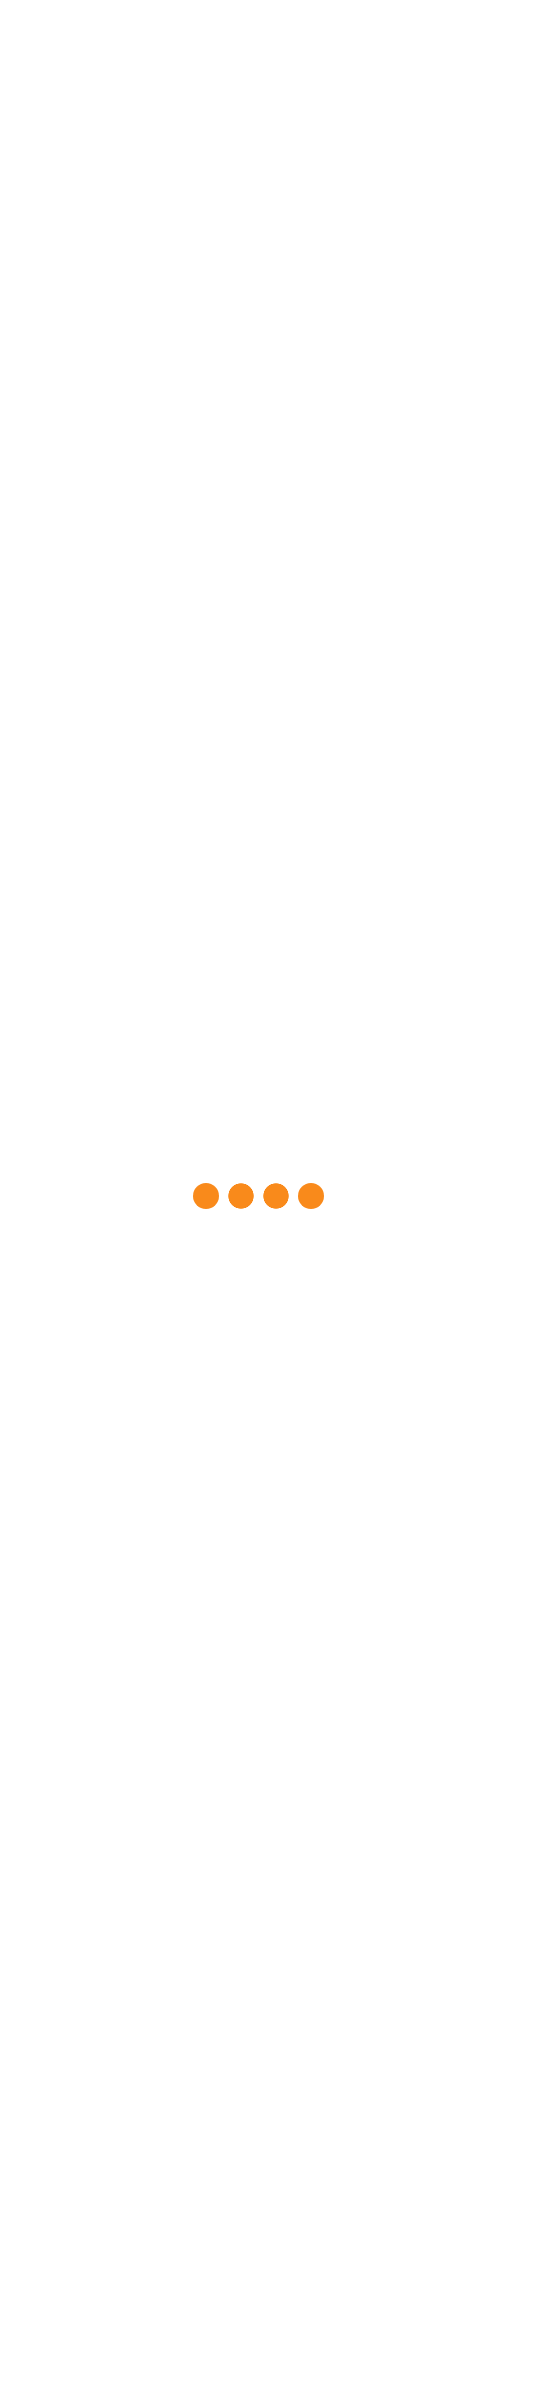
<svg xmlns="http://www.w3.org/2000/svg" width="557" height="2392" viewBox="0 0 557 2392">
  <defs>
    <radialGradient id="g1" gradientUnits="userSpaceOnUse" cx="276" cy="1196" r="13"><stop offset="0.95" stop-color="#f98a1b"/><stop offset="1" stop-color="#fff"/></radialGradient>
    <radialGradient id="g2" gradientUnits="userSpaceOnUse" cx="241" cy="1196" r="13"><stop offset="0.95" stop-color="#f98a1b"/><stop offset="1" stop-color="#fff"/></radialGradient>
  </defs>
  <rect width="100%" height="100%" fill="#fff"/>
  <rect x="263" y="1183" width="26" height="26" fill="url(#g1)"/>
  <rect x="228" y="1183" width="26" height="26" fill="url(#g2)"/>
  <circle cx="206" cy="1196" r="13" fill="#f98a1b"/>
  <circle cx="311" cy="1196" r="13" fill="#f98a1b"/>
</svg>
